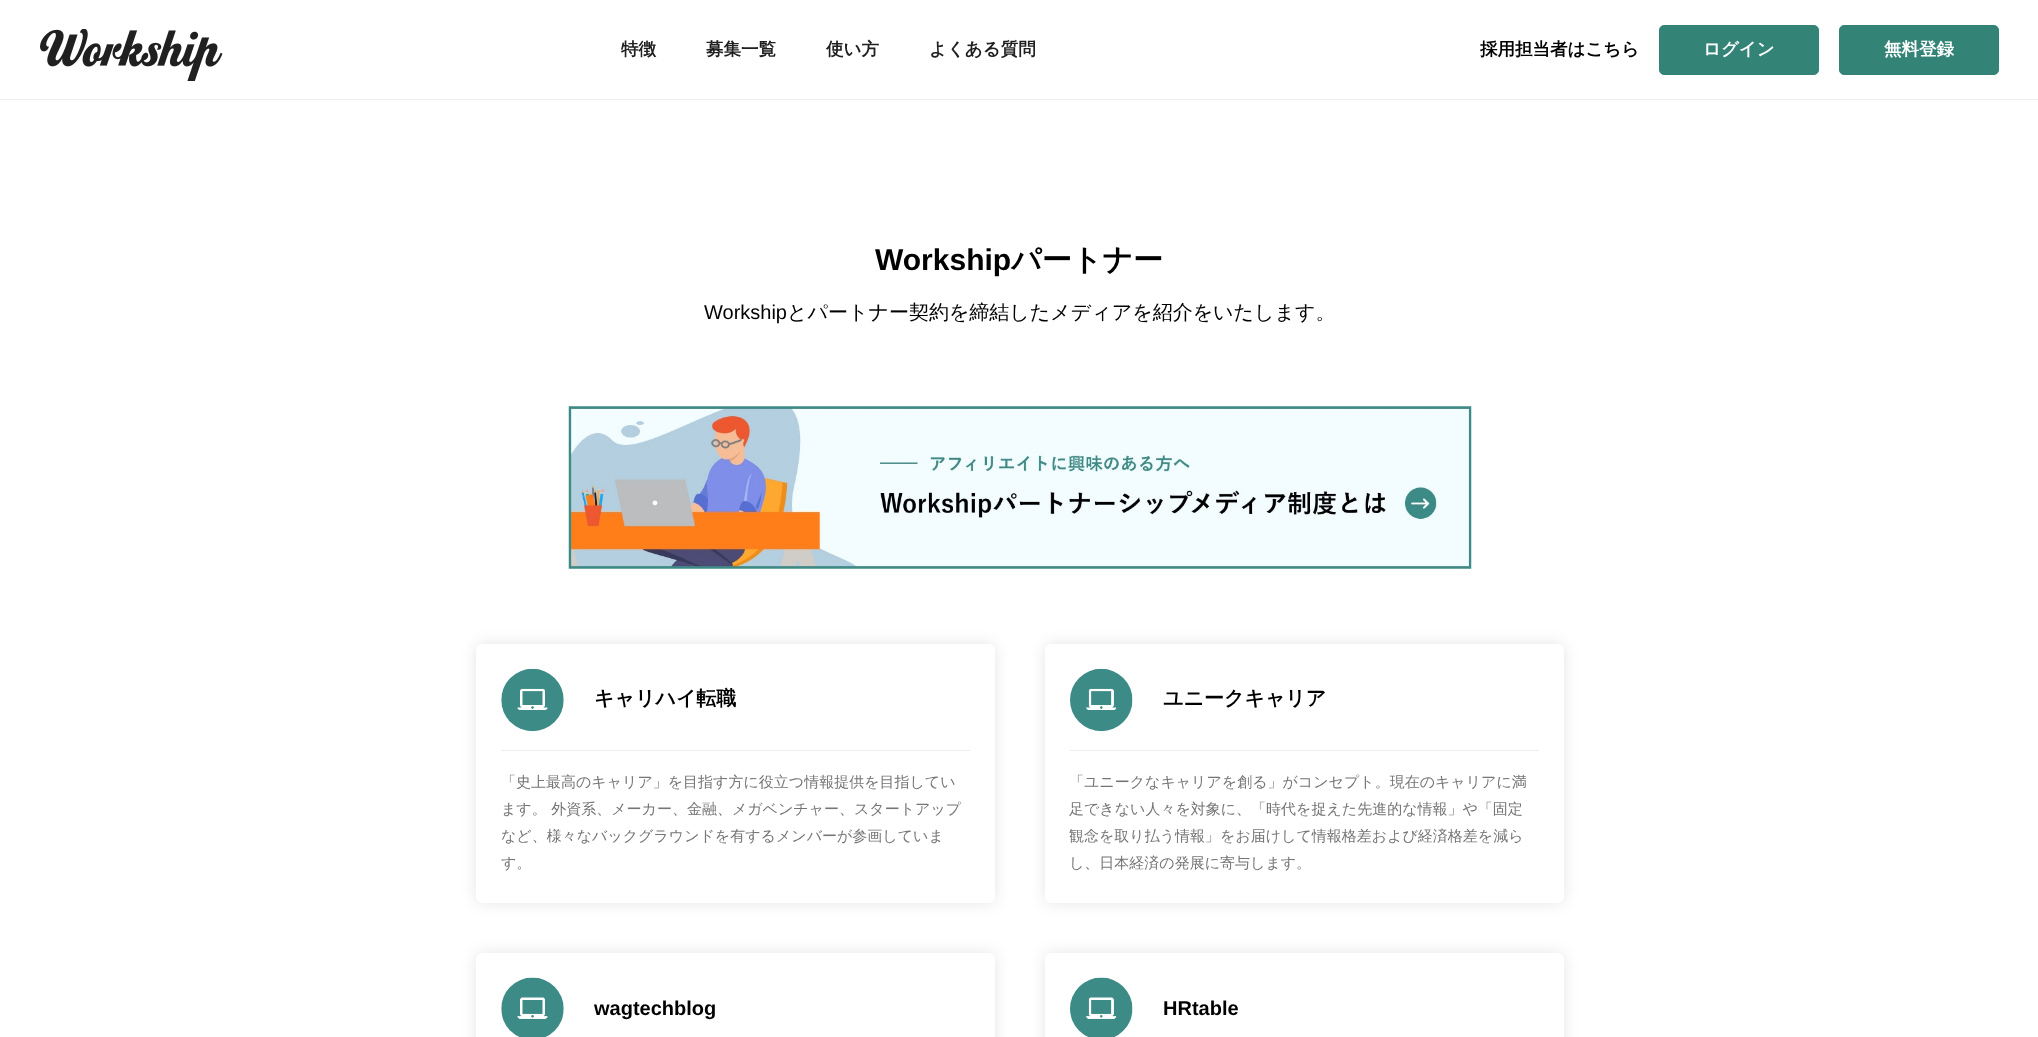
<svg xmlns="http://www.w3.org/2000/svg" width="2038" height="1037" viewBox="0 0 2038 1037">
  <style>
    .t1 { font: bold 17.5px WenQuanYi Zen Hei; fill: #202020; }
    .t2 { font: bold 17.5px WenQuanYi Zen Hei; fill: #000; }
    .t3 { font: bold 17.5px WenQuanYi Zen Hei; fill: #fff; }
    .t4 { font: bold 30px Liberation Sans; fill: #000; }
    .t5 { font: bold 30px WenQuanYi Zen Hei; fill: #000; }
    .t6 { font: 20px Liberation Sans; fill: #000; }
    .t7 { font: 500 20px WenQuanYi Zen Hei; fill: #000; }
    .t8 { font: bold 20px WenQuanYi Zen Hei; fill: #000; }
    .t9 { font: 500 15px WenQuanYi Zen Hei; fill: #757575; }
    .t10 { font: bold 20px Liberation Sans; fill: #000; }
  </style>
  <rect width="100%" height="100%" fill="#fff"/>
  <rect x="0" y="99" width="2038" height="1" fill="#ebedef"/>
  <image x="40" y="29" width="183" height="52" href="images/1.png"/>
  <text x="621" y="55" class="t1">特徴</text>
  <text x="706" y="55" class="t1">募集一覧</text>
  <text x="826" y="55" class="t1">使い方</text>
  <text x="929" y="55" class="t1">よくある質問</text>
  <text x="1480" y="55" class="t2">採用担当者はこちら</text>
  <rect x="1659.5" y="25.5" width="159" height="49" rx="4.5" fill="#348377" stroke="#348377"/>
  <text x="1703" y="55" class="t3">ログイン</text>
  <rect x="1839.5" y="25.5" width="159" height="49" rx="4.5" fill="#348377" stroke="#348377"/>
  <text x="1884" y="55" class="t3">無料登録</text>
  <text x="875" y="270" class="t4">Workship</text>
  <text x="1011" y="270" class="t5">パートナー</text>
  <text x="704" y="319" class="t6">Workship</text>
  <text x="787" y="319" class="t7">とパートナー契約を締結したメディアを紹介をいたします。</text>
  <image x="568" y="406" width="904" height="163" href="images/2.png"/>
  <rect x="476" y="644" width="519" height="259" rx="6" fill="#0000001a" filter="blur(7.5px)"/>
  <rect x="476" y="644" width="519" height="259" rx="6" fill="#fff"/>
  <rect x="501" y="750" width="469" height="1" fill="#ebedef"/>
  <image x="501" y="668" width="63" height="64" href="images/3.png"/>
  <text x="594" y="705" class="t8">キャリハイ転職</text>
  <text x="501" y="787" class="t9">「史上最高のキャリア」を目指す方に役立つ情報提供を目指してい</text>
  <text x="501" y="814" class="t9">ます。 外資系、メーカー、金融、メガベンチャー、スタートアップ</text>
  <text x="501" y="841" class="t9">など、様々なバックグラウンドを有するメンバーが参画していま</text>
  <text x="501" y="868" class="t9">す。</text>
  <rect x="1045" y="644" width="519" height="259" rx="6" fill="#0000001a" filter="blur(7.5px)"/>
  <rect x="1045" y="644" width="519" height="259" rx="6" fill="#fff"/>
  <rect x="1070" y="750" width="469" height="1" fill="#ebedef"/>
  <image x="1070" y="668" width="63" height="64" href="images/4.png"/>
  <text x="1163" y="705" class="t8">ユニークキャリア</text>
  <text x="1069" y="787" class="t9">「ユニークなキャリアを創る」がコンセプト。現在のキャリアに満</text>
  <text x="1069" y="814" class="t9">足できない人々を対象に、「時代を捉えた先進的な情報」や「固定</text>
  <text x="1069" y="841" class="t9">観念を取り払う情報」をお届けして情報格差および経済格差を減ら</text>
  <text x="1069" y="868" class="t9">し、日本経済の発展に寄与します。</text>
  <rect x="476" y="953" width="519" height="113" rx="6" fill="#0000001a" filter="blur(7.5px)"/>
  <rect x="476" y="953" width="519" height="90" rx="6" fill="#fff"/>
  <image x="501" y="977" width="63" height="60" href="images/5.png"/>
  <text x="594" y="1015" class="t10">wagtechblog</text>
  <rect x="1045" y="953" width="519" height="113" rx="6" fill="#0000001a" filter="blur(7.5px)"/>
  <rect x="1045" y="953" width="519" height="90" rx="6" fill="#fff"/>
  <image x="1070" y="977" width="63" height="60" href="images/6.png"/>
  <text x="1163" y="1015" class="t10">HRtable</text>
</svg>
